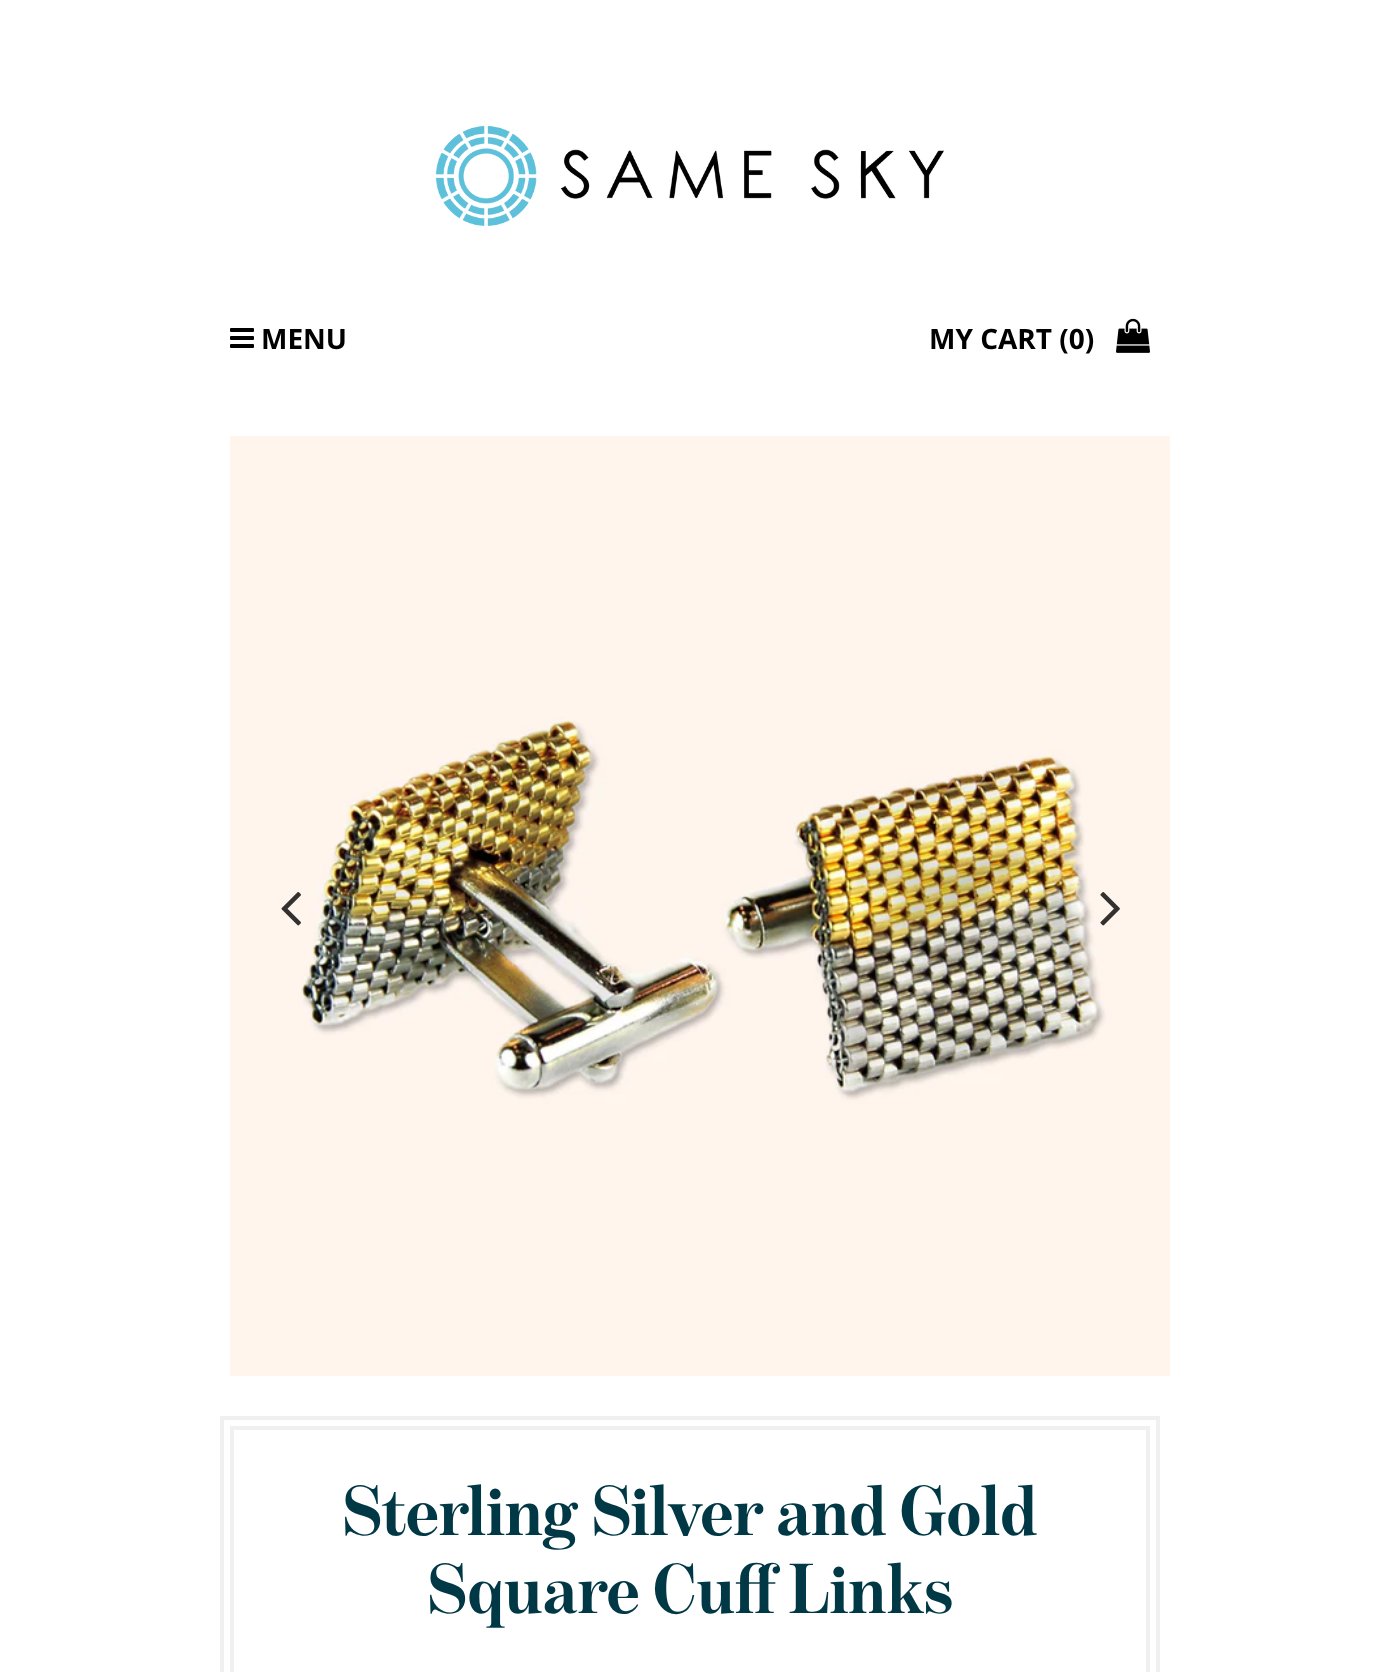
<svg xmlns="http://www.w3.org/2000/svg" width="1379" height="1672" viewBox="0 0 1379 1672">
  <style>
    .t1 { font: bold 28px Open Sans; fill: #000; }
    .t2 { font: bold 72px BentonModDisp; fill: #003846; }
  </style>
  <rect width="100%" height="100%" fill="#fff"/>
  <image x="436" y="125" width="508" height="101" href="images/1.png"/>
  <image x="230" y="328" width="24" height="20" href="images/2.png"/>
  <text x="261" y="349" class="t1">MENU</text>
  <text x="929" y="349" class="t1">MY CART (0)</text>
  <image x="1116" y="318" width="34" height="35" href="images/3.png"/>
  <image x="230" y="436" width="940" height="940" href="images/4.png"/>
  <image x="281" y="892" width="20" height="34" href="images/5.png"/>
  <image x="1100" y="892" width="20" height="34" href="images/6.png"/>
  <rect x="222" y="1418" width="936" height="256" fill="none" stroke="#f0f0f0" stroke-width="4"/>
  <rect x="232" y="1428" width="916" height="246" fill="none" stroke="#f0f0f0" stroke-width="4"/>
  <text x="342" y="1535" class="t2">Sterling Silver and Gold</text>
  <text x="427" y="1613" class="t2">Square Cuff Links</text>
</svg>
